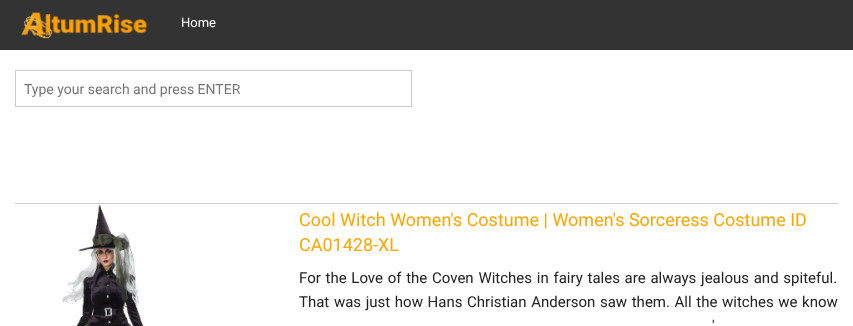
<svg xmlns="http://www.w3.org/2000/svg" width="853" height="326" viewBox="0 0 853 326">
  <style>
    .t1 { font: 13px Roboto; fill: #fff; }
    .t2 { font: 14px Roboto; fill: #757575; }
    .t3 { font: 18px Roboto; fill: #ffa500; }
    .t4 { font: 15px Roboto; fill: #222; }
  </style>
  <rect width="100%" height="100%" fill="#fff"/>
  <rect x="0" y="0" width="853" height="50" fill="#333"/>
  <image x="21" y="12" width="127" height="27" href="images/1.png"/>
  <text x="181" y="27" class="t1">Home</text>
  <rect x="15.5" y="70.5" width="396" height="36" fill="none" stroke="#ccc"/>
  <text x="24" y="94" class="t2">Type your search and press ENTER</text>
  <rect x="15" y="203" width="823" height="1" fill="#ccc"/>
  <image x="62" y="204" width="82" height="122" href="images/2.png"/>
  <text x="299" y="226" class="t3">Cool Witch Women's Costume | Women's Sorceress Costume ID</text>
  <text x="299" y="251" class="t3">CA01428-XL</text>
  <text x="299" y="283" word-spacing="1" class="t4">For the Love of the Coven Witches in fairy tales are always jealous and spiteful.</text>
  <text x="299" y="307" word-spacing="0.9" class="t4">That was just how Hans Christian Anderson saw them. All the witches we know</text>
  <text x="712" y="331" word-spacing="2" class="t4">'</text>
</svg>
